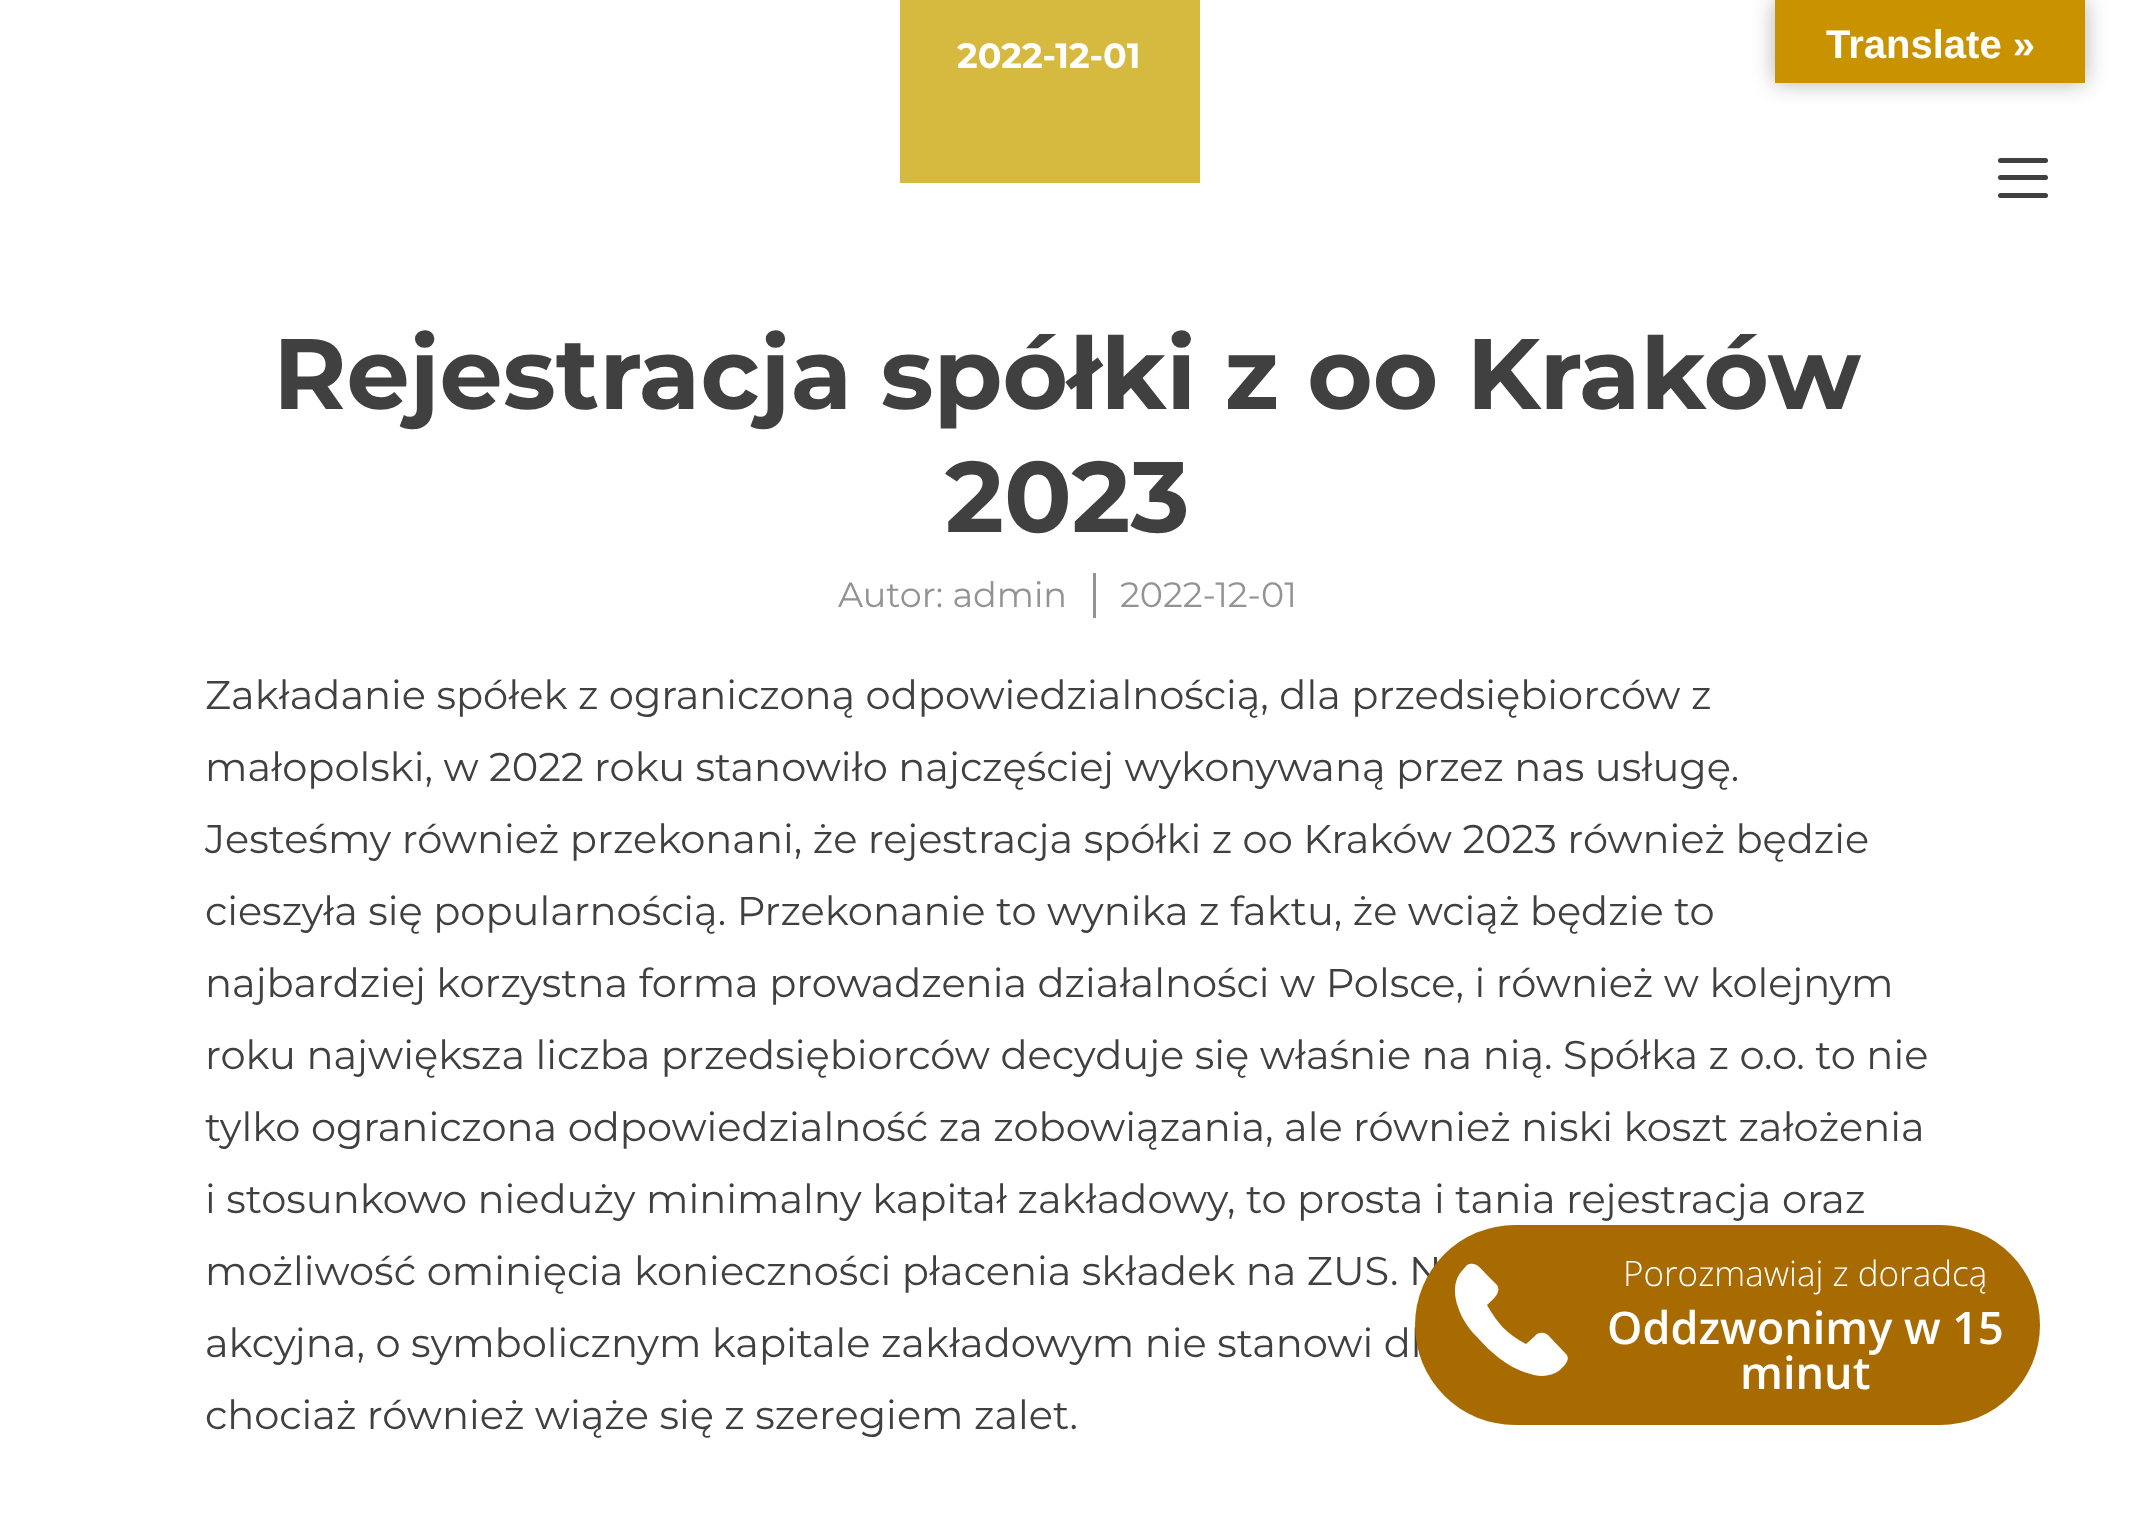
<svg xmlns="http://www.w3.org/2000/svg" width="2135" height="1520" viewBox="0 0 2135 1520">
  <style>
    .t1 { font: bold 35px Montserrat; fill: #fff; }
    .t2 { font: bold 100px Montserrat; fill: #404040; }
    .t3 { font: 35px Montserrat; fill: #939393; }
    .t4 { font: 40px Montserrat; fill: #404040; }
    .t5 { font: bold 40px Liberation Sans; fill: #fff; }
    .t6 { font: 300 35px Open Sans; fill: #fff; }
    .t7 { font: 600 45px Open Sans; fill: #fff; }
  </style>
  <rect width="100%" height="100%" fill="#fff"/>
  <rect x="900" y="0" width="300" height="183" fill="#d6ba3f"/>
  <text x="957" y="68" class="t1">2022-12-01</text>
  <text x="273" y="409" class="t2">Rejestracja spółki z oo Kraków</text>
  <text x="945" y="532" class="t2">2023</text>
  <text x="838" y="607" class="t3">Autor: admin</text>
  <text x="1120" y="607" class="t3">2022-12-01</text>
  <rect x="1093" y="573" width="3" height="45" fill="#939393"/>
  <text x="205" y="709" class="t4">Zakładanie spółek z ograniczoną odpowiedzialnością, dla przedsiębiorców z</text>
  <text x="205" y="781" class="t4">małopolski, w 2022 roku stanowiło najczęściej wykonywaną przez nas usługę.</text>
  <text x="205" y="853" class="t4">Jesteśmy również przekonani, że rejestracja spółki z oo Kraków 2023 również będzie</text>
  <text x="205" y="925" class="t4">cieszyła się popularnością. Przekonanie to wynika z faktu, że wciąż będzie to</text>
  <text x="205" y="997" class="t4">najbardziej korzystna forma prowadzenia działalności w Polsce, i również w kolejnym</text>
  <text x="205" y="1069" class="t4">roku największa liczba przedsiębiorców decyduje się właśnie na nią. Spółka z o.o. to nie</text>
  <text x="205" y="1141" class="t4">tylko ograniczona odpowiedzialność za zobowiązania, ale również niski koszt założenia</text>
  <text x="205" y="1213" class="t4">i stosunkowo nieduży minimalny kapitał zakładowy, to prosta i tania rejestracja oraz</text>
  <text x="205" y="1285" class="t4">możliwość ominięcia konieczności płacenia składek na ZUS. N</text>
  <text x="205" y="1357" class="t4">akcyjna, o symbolicznym kapitale zakładowym nie stanowi dl</text>
  <text x="205" y="1429" class="t4">chociaż również wiąże się z szeregiem zalet.</text>
  <rect x="1998" y="158" width="50" height="5" rx="2.5" fill="#404040"/>
  <rect x="1998" y="175" width="50" height="5" rx="2.5" fill="#404040"/>
  <rect x="1998" y="193" width="50" height="5" rx="2.5" fill="#404040"/>
  <rect x="1775" y="0" width="310" height="83" fill="#0000004d" filter="blur(11px)"/>
  <rect x="1775" y="0" width="310" height="83" fill="#c99300"/>
  <text x="1826" y="58" class="t5">Translate »</text>
  <rect x="1415" y="1225" width="625" height="200" rx="100" fill="#a86b01"/>
  <path d="M1565 1353L1548 1335C1544 1332 1538 1332 1535 1336L1526 1344C1507 1334 1498 1324 1487 1305C1492 1300 1502 1293 1497 1285L1487 1275C1482 1270 1476 1260 1467 1265L1461 1272C1453 1282 1454 1296 1458 1307C1462 1319 1469 1329 1477 1337C1493 1355 1511 1370 1534 1375C1543 1377 1552 1376 1560 1370C1564 1366 1572 1359 1565 1353Z" fill="#fff"/>
  <text x="1623" y="1286" class="t6">Porozmawiaj z doradcą</text>
  <text x="1607" y="1344" class="t7">Oddzwonimy w 15</text>
  <text x="1740" y="1389" class="t7">minut</text>
</svg>
